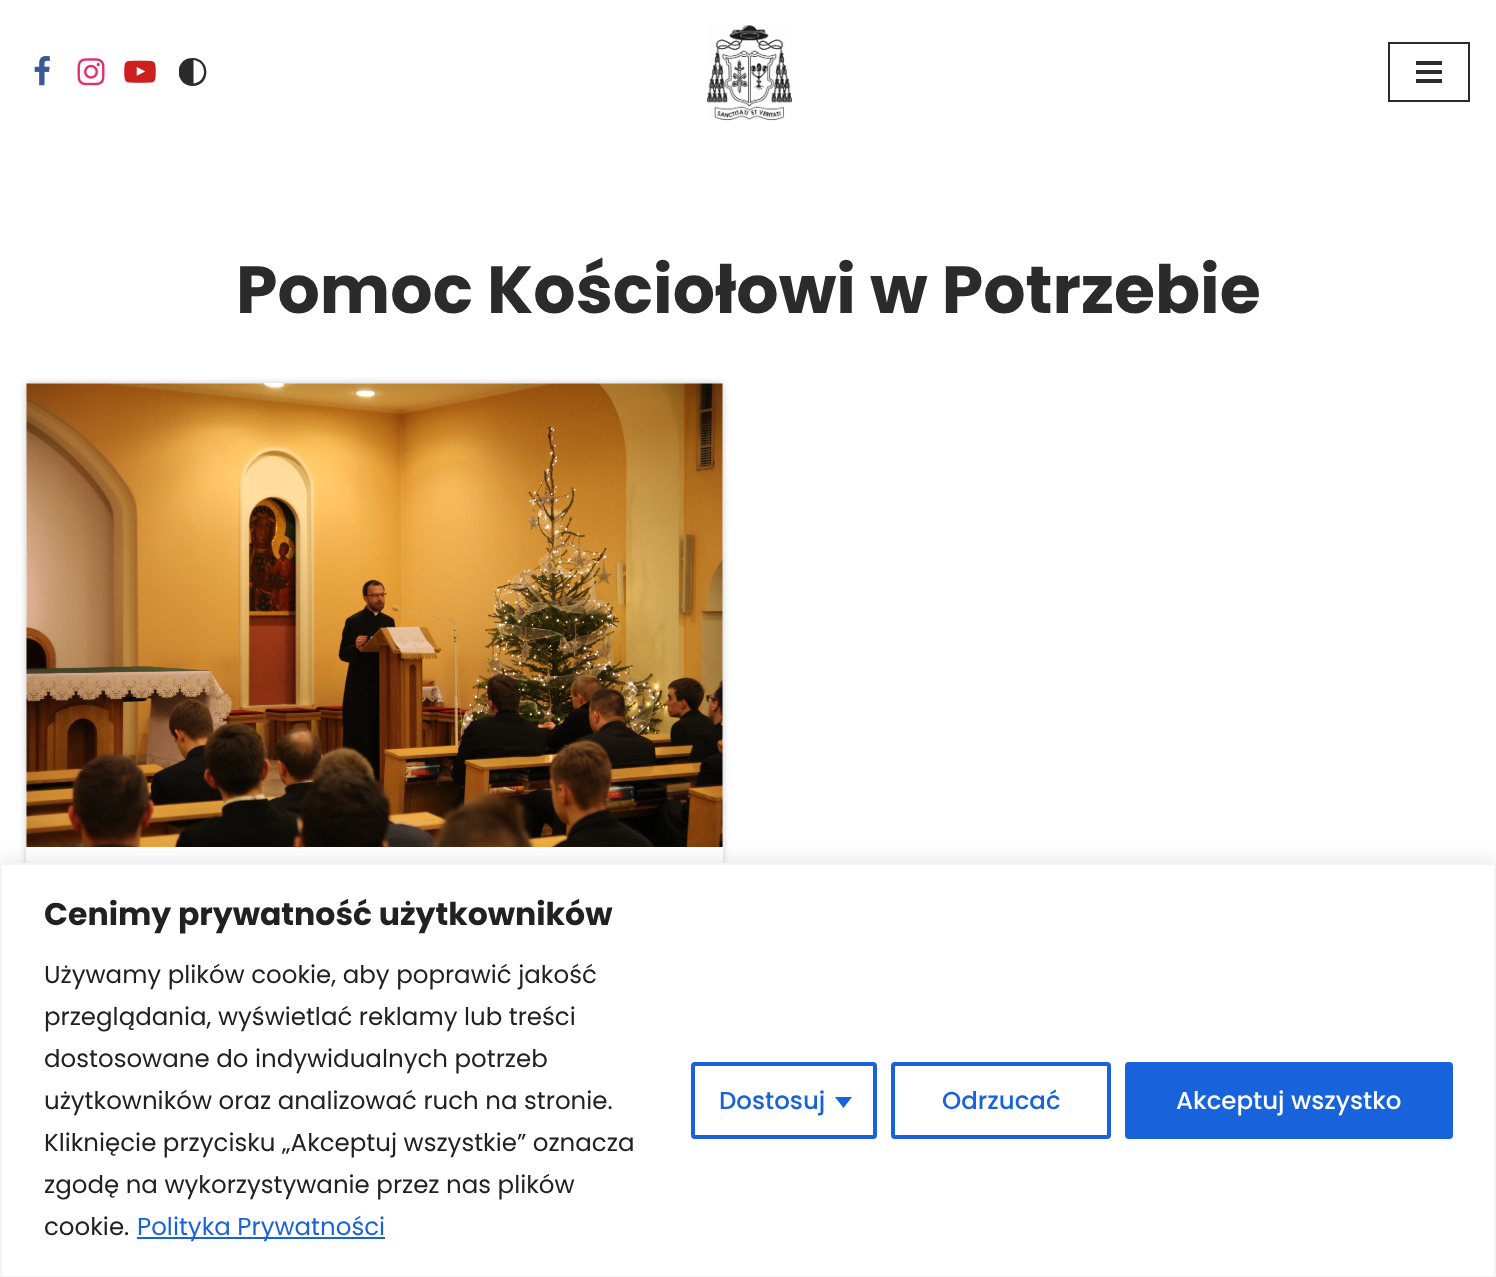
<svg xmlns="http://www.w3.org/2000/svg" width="1496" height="1277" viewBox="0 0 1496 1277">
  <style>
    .t1 { font: bold 66.5px Poppins; fill: #2b2b2b; }
    .t2 { font: bold 31.5px Poppins; fill: #212121; }
    .t3 { font: 24.5px Poppins; fill: #212121; }
    .t4 { font: 24.5px Poppins; fill: #1863dc; }
    .t5 { font: 500 24.5px Poppins; fill: #1863dc; }
    .t6 { font: 500 24.5px Poppins; fill: #fff; }
  </style>
  <defs>
    <clipPath id="clip1"><rect x="179" y="58" width="28" height="28"/></clipPath>
  </defs>
  <rect width="100%" height="100%" fill="#fff"/>
  <image x="34" y="56" width="16" height="30" href="images/1.png"/>
  <image x="77" y="58" width="28" height="28" href="images/2.png"/>
  <image x="124" y="60" width="32" height="23" href="images/3.png"/>
  <g clip-path="url(#clip1)">
    <path d="M192.5 58C174 58 174 85.5 192.5 86C211 86 211 58 192.5 58ZM193.5 83.5V60C207.5 61.5 207.5 82 193.5 83.5Z" fill="#2b2b2b"/>
  </g>
  <image x="706" y="25" width="87" height="96" href="images/4.png"/>
  <rect x="1389" y="43" width="80" height="58" fill="none" stroke="#2b2b2b" stroke-width="2"/>
  <rect x="1416" y="61" width="26" height="4" fill="#2b2b2b"/>
  <rect x="1416" y="70" width="26" height="4" fill="#2b2b2b"/>
  <rect x="1416" y="79" width="26" height="4" fill="#2b2b2b"/>
  <text x="236" y="313" class="t1">Pomoc Kościołowi w Potrzebie</text>
  <rect x="26" y="383" width="697" height="881" fill="#00000033" filter="blur(3.5px)"/>
  <rect x="26" y="383" width="697" height="480" fill="#fff"/>
  <image x="26" y="383" width="697" height="464" href="images/5.png"/>
  <rect x="0" y="861" width="1496" height="415" fill="#acabab4d" filter="blur(9px)"/>
  <rect x="1" y="864" width="1494" height="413" fill="#fff" stroke="#f4f4f4" stroke-width="2"/>
  <text x="44" y="925" class="t2">Cenimy prywatność użytkowników</text>
  <text x="44" y="983" class="t3">Używamy plików cookie, aby poprawić jakość</text>
  <text x="44" y="1025" class="t3">przeglądania, wyświetlać reklamy lub treści</text>
  <text x="44" y="1067" class="t3">dostosowane do indywidualnych potrzeb</text>
  <text x="44" y="1109" class="t3">użytkowników oraz analizować ruch na stronie.</text>
  <text x="44" y="1151" class="t3">Kliknięcie przycisku „Akceptuj wszystkie” oznacza</text>
  <text x="44" y="1193" class="t3">zgodę na wykorzystywanie przez nas plików</text>
  <text x="44" y="1235" class="t3">cookie.</text>
  <rect x="137" y="1237" width="248" height="2" fill="#1863dc"/>
  <text x="137" y="1235" class="t4">Polityka Prywatności</text>
  <rect x="693" y="1064" width="182" height="73" rx="2" fill="none" stroke="#1863dc" stroke-width="4"/>
  <text x="719" y="1109" class="t5">Dostosuj</text>
  <path d="M835 1097H852L843.5 1108Z" fill="#1863dc"/>
  <rect x="893" y="1064" width="216" height="73" rx="2" fill="none" stroke="#1863dc" stroke-width="4"/>
  <text x="942" y="1109" class="t5">Odrzucać</text>
  <rect x="1127" y="1064" width="324" height="73" rx="2" fill="#1863dc" stroke="#1863dc" stroke-width="4"/>
  <text x="1176" y="1109" class="t6">Akceptuj wszystko</text>
</svg>
